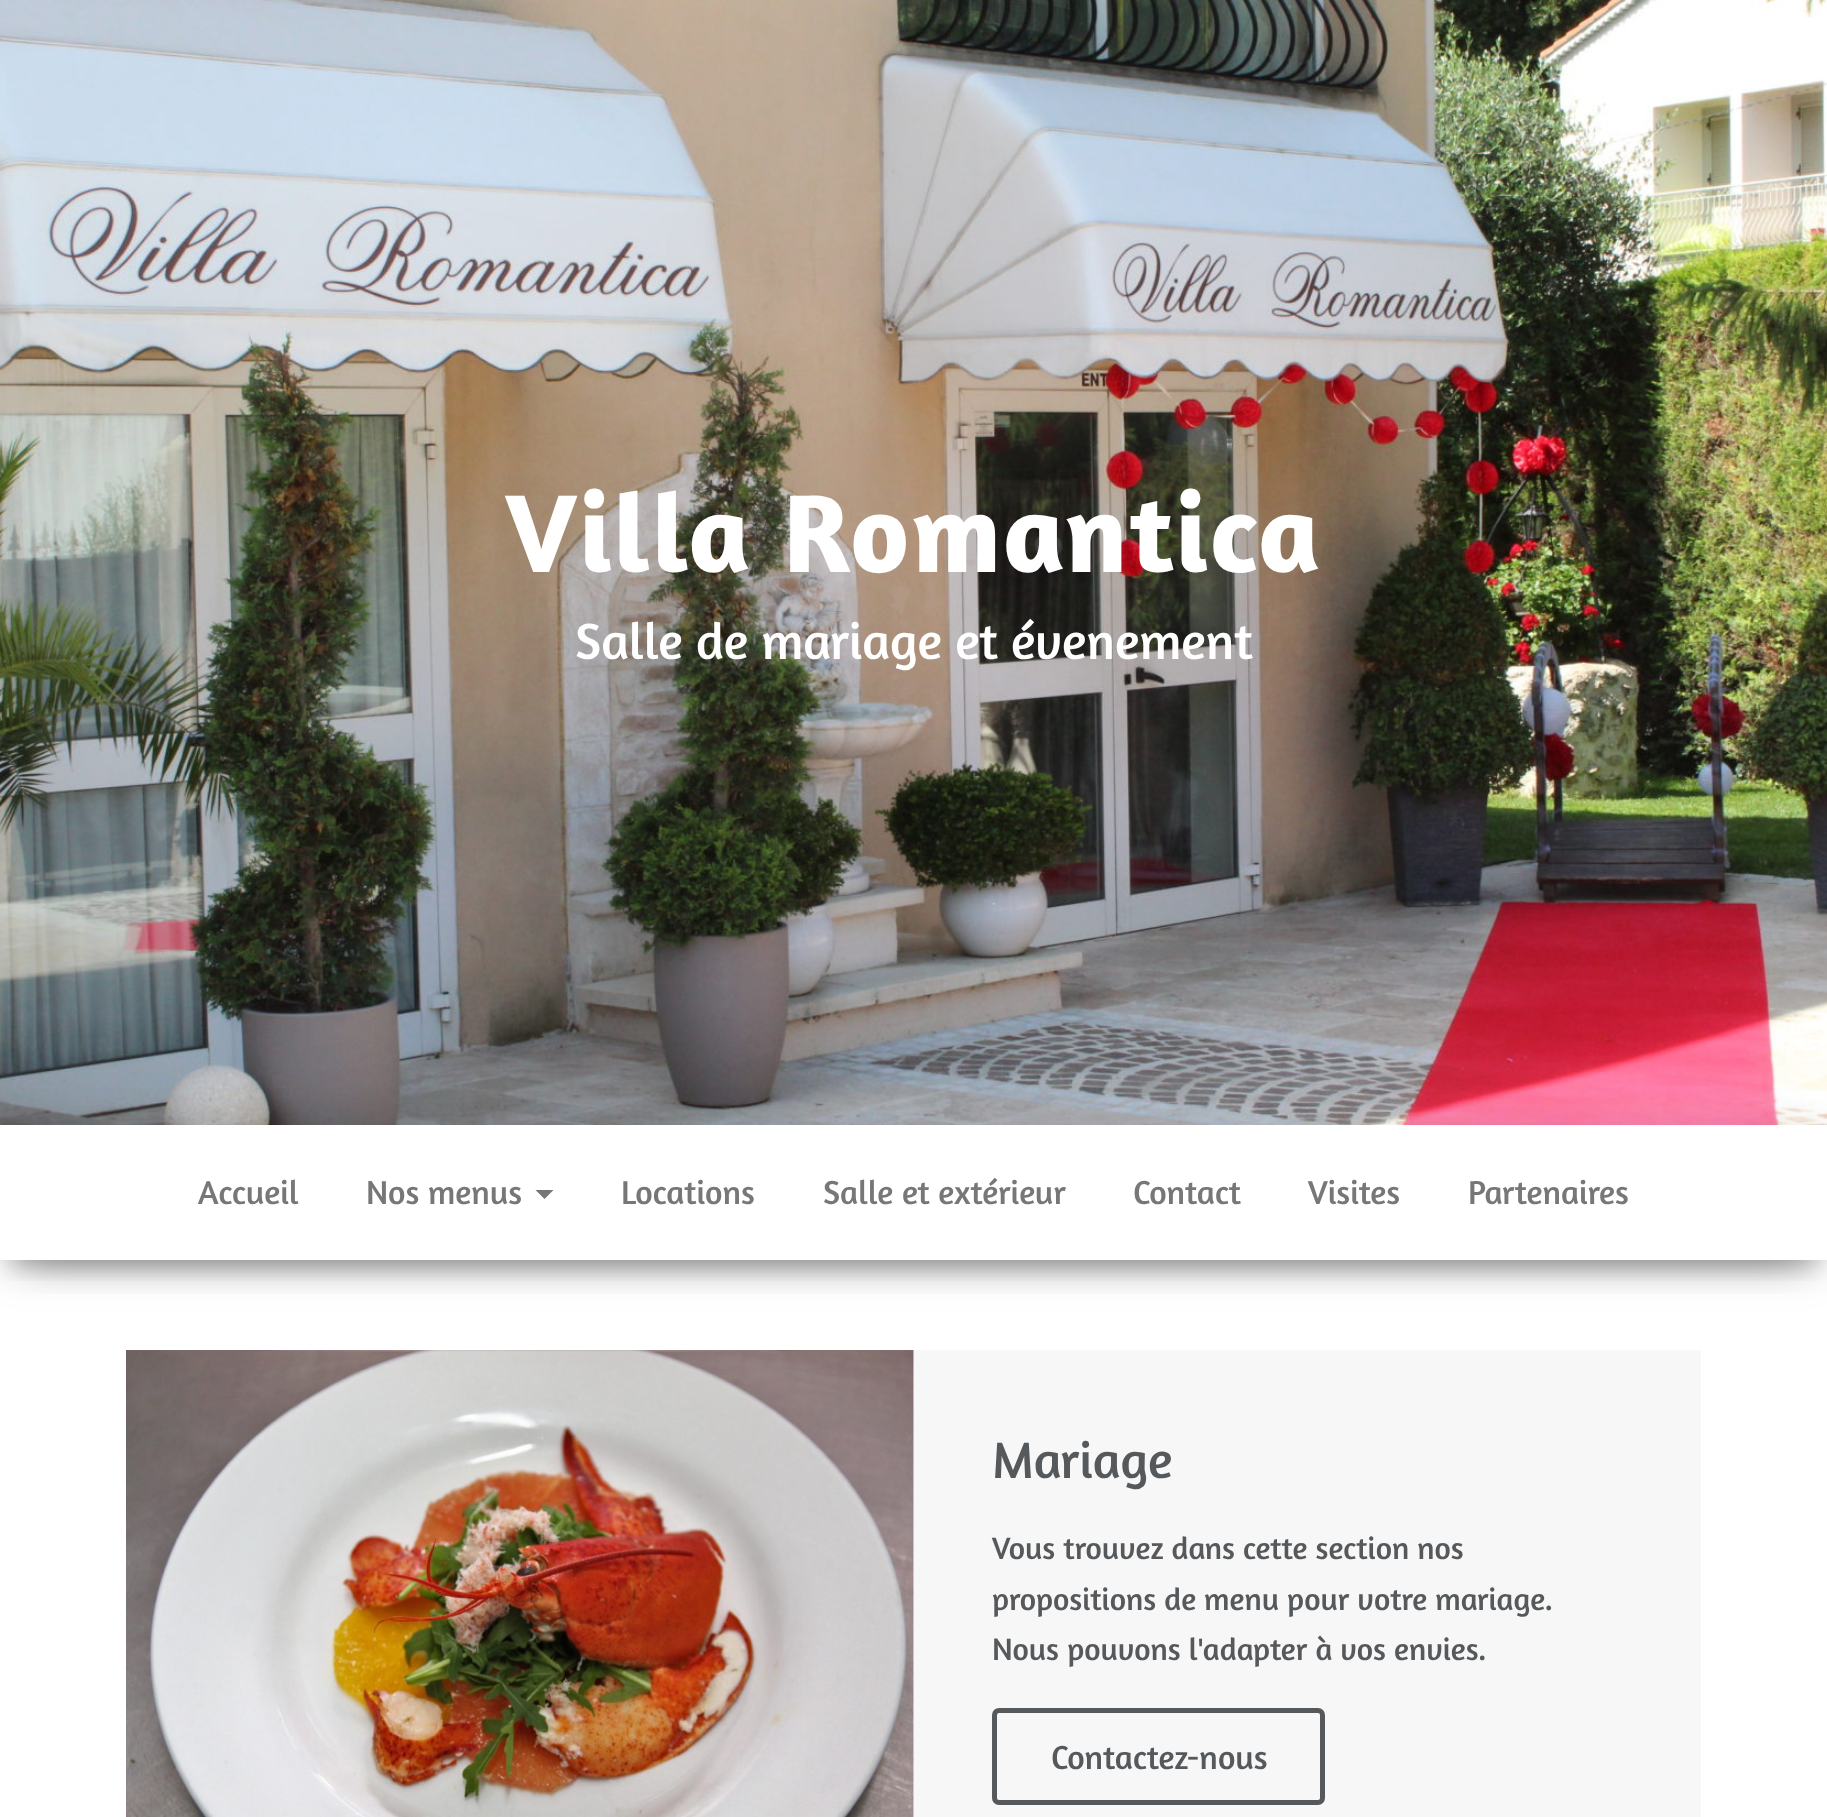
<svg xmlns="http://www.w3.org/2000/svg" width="1827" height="1817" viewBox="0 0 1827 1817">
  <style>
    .t1 { font: bold 112.5px Amaranth; letter-spacing: 2.25px; fill: #fff; }
    .t2 { font: 51.75px Amaranth; fill: #fff; }
    .t3 { font: 33.75px Amaranth; fill: #777; }
    .t4 { font: 51.75px Amaranth; fill: #55595c; }
    .t5 { font: 31.5px Amaranth; fill: #55595c; }
    .t6 { font: 33.75px Amaranth; fill: #55595c; }
  </style>
  <defs>
    <clipPath id="clip1"><rect x="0" y="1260" width="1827" height="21"/></clipPath>
    <clipPath id="clip2"><path d="M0 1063H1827V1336H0ZM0 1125H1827V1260H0Z" clip-rule="evenodd"/></clipPath>
    <clipPath id="clip3"><rect x="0" y="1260" width="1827" height="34"/></clipPath>
  </defs>
  <rect width="100%" height="100%" fill="#fff"/>
  <image x="0" y="0" width="1827" height="1125" href="images/1.png"/>
  <text x="505" y="572" class="t1">Villa Romantica</text>
  <text x="575" y="659" class="t2">Salle de mariage et évenement</text>
  <g clip-path="url(#clip1)">
    <rect x="11" y="1154" width="1805" height="113" fill="#00000033" filter="blur(11px)"/>
  </g>
  <g clip-path="url(#clip2)">
    <rect x="0" y="1132" width="1827" height="135" fill="#0000001f" filter="blur(22.5px)"/>
  </g>
  <g clip-path="url(#clip3)">
    <rect x="27" y="1175" width="1773" height="81" fill="#0000006b" filter="blur(22.5px)"/>
  </g>
  <text x="198" y="1204" class="t3">Accueil</text>
  <text x="366" y="1204" class="t3">Nos menus</text>
  <path d="M535.5 1190H553.5L544.5 1199Z" fill="#777"/>
  <text x="621" y="1204" class="t3">Locations</text>
  <text x="823" y="1204" class="t3">Salle et extérieur</text>
  <text x="1133" y="1204" class="t3">Contact</text>
  <text x="1308" y="1204" class="t3">Visites</text>
  <text x="1468" y="1204" class="t3">Partenaires</text>
  <image x="126" y="1350" width="788" height="467" href="images/2.png"/>
  <rect x="914" y="1350" width="787" height="467" fill="#f7f7f7"/>
  <text x="992" y="1478" class="t4">Mariage</text>
  <text x="992" y="1559" class="t5">Vous trouvez dans cette section nos</text>
  <text x="992" y="1610" class="t5">propositions de menu pour votre mariage.</text>
  <text x="992" y="1660" class="t5">Nous pouvons l'adapter à vos envies.</text>
  <rect x="994.5" y="1710.5" width="328" height="92" rx="4.5" fill="none" stroke="#55595c" stroke-width="5"/>
  <text x="1051" y="1769" class="t6">Contactez-nous</text>
</svg>
